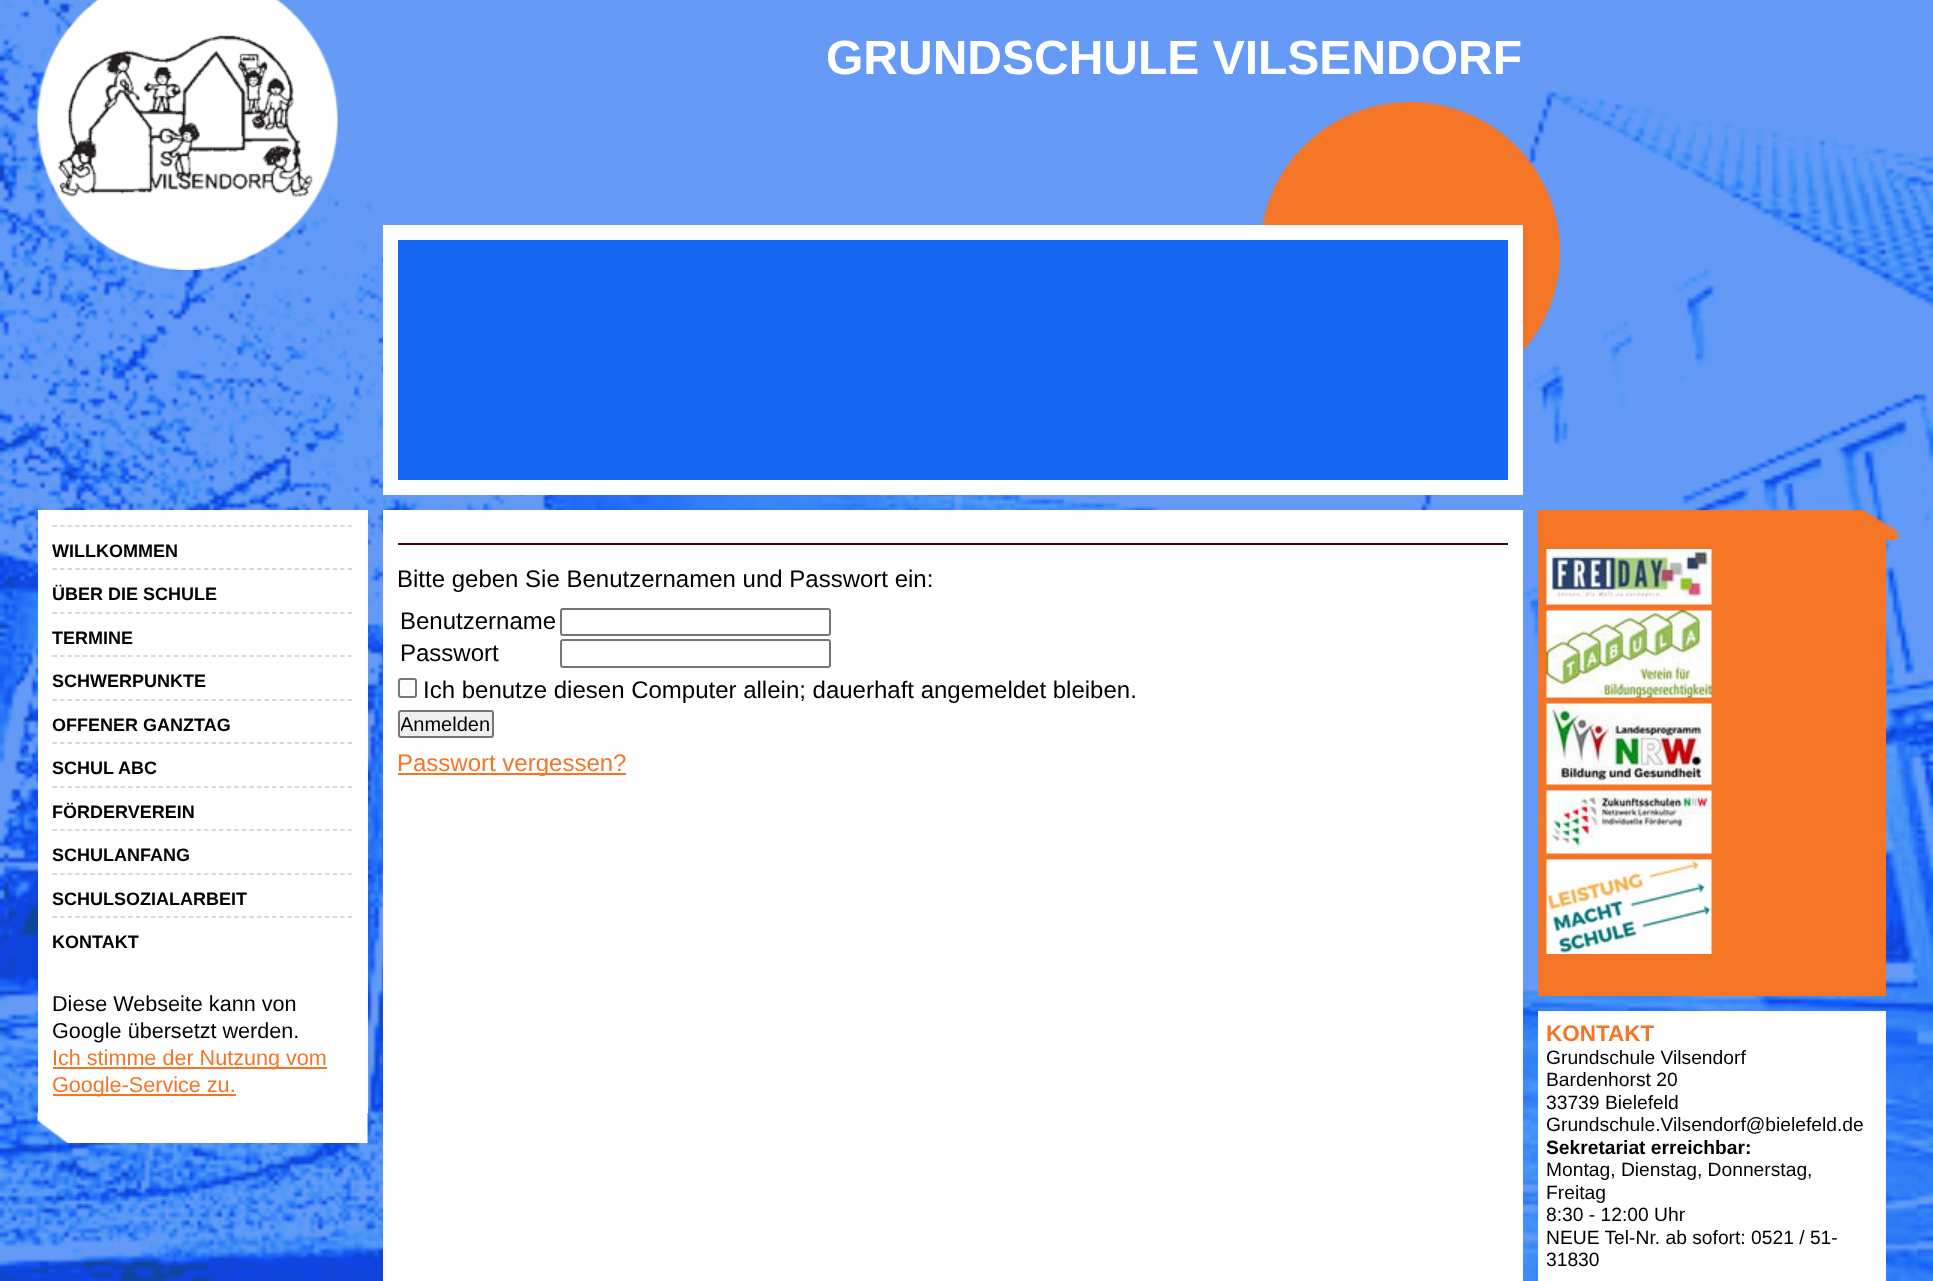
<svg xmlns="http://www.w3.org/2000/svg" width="1933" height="1281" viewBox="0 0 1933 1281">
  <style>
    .t1 { font: bold 48px Liberation Sans; fill: #fff; }
    .t2 { font: bold 18px Liberation Sans; fill: #000; }
    .t3 { font: 21.6px Liberation Sans; fill: #000; }
    .t4 { font: 21.6px Liberation Sans; fill: #f57527; }
    .t5 { font: 24px Liberation Sans; fill: #000; }
    .t6 { font: 20px Liberation Sans; fill: #000; }
    .t7 { font: 24px Liberation Sans; fill: #f57527; }
    .t8 { font: bold 22.5px Liberation Sans; fill: #f57527; }
    .t9 { font: 19.25px Liberation Sans; fill: #000; }
    .t10 { font: bold 19.25px Liberation Sans; fill: #000; }
  </style>
  <defs>
    <clipPath id="clip1"><rect x="401" y="713" width="90" height="22"/></clipPath>
  </defs>
  <rect width="100%" height="100%" fill="#fff"/>
  <image x="0" y="0" width="1933" height="1281" href="images/1.png"/>
  <image x="37" y="0" width="301" height="270" href="images/2.png"/>
  <text x="826" y="74" class="t1">GRUNDSCHULE VILSENDORF</text>
  <image x="1261" y="102" width="299" height="250" href="images/3.png"/>
  <rect x="390.5" y="232.5" width="1125" height="255" fill="#1767f4" stroke="#fff" stroke-width="15"/>
  <rect x="38" y="510" width="330" height="603" fill="#fff"/>
  <path d="M52.5 526H352.5" fill="none" stroke="#ccc" stroke-width="1.5" stroke-dasharray="4.5 3.07"/>
  <text x="52" y="557" class="t2">WILLKOMMEN</text>
  <path d="M52.5 569H352.5" fill="none" stroke="#ccc" stroke-width="1.5" stroke-dasharray="4.5 3.07"/>
  <text x="52" y="600" class="t2">ÜBER DIE SCHULE</text>
  <path d="M52.5 613H352.5" fill="none" stroke="#ccc" stroke-width="1.5" stroke-dasharray="4.5 3.07"/>
  <text x="52" y="644" class="t2">TERMINE</text>
  <path d="M52.5 656H352.5" fill="none" stroke="#ccc" stroke-width="1.5" stroke-dasharray="4.5 3.07"/>
  <text x="52" y="687" class="t2">SCHWERPUNKTE</text>
  <path d="M52.5 700H352.5" fill="none" stroke="#ccc" stroke-width="1.5" stroke-dasharray="4.5 3.07"/>
  <text x="52" y="731" class="t2">OFFENER GANZTAG</text>
  <path d="M52.5 743H352.5" fill="none" stroke="#ccc" stroke-width="1.5" stroke-dasharray="4.5 3.07"/>
  <text x="52" y="774" class="t2">SCHUL ABC</text>
  <path d="M52.5 787H352.5" fill="none" stroke="#ccc" stroke-width="1.5" stroke-dasharray="4.5 3.07"/>
  <text x="52" y="818" class="t2">FÖRDERVEREIN</text>
  <path d="M52.5 830H352.5" fill="none" stroke="#ccc" stroke-width="1.5" stroke-dasharray="4.5 3.07"/>
  <text x="52" y="861" class="t2">SCHULANFANG</text>
  <path d="M52.5 874H352.5" fill="none" stroke="#ccc" stroke-width="1.5" stroke-dasharray="4.5 3.07"/>
  <text x="52" y="905" class="t2">SCHULSOZIALARBEIT</text>
  <path d="M52.5 917H352.5" fill="none" stroke="#ccc" stroke-width="1.5" stroke-dasharray="4.5 3.07"/>
  <text x="52" y="948" class="t2">KONTAKT</text>
  <text x="52" y="1011" class="t3">Diese Webseite kann von</text>
  <text x="52" y="1038" class="t3">Google übersetzt werden.</text>
  <rect x="53" y="1067" width="274" height="2" fill="#f57527"/>
  <text x="52" y="1065" class="t4">Ich stimme der Nutzung vom</text>
  <rect x="53" y="1094" width="183" height="2" fill="#f57527"/>
  <text x="52" y="1092" class="t4">Google-Service zu.</text>
  <image x="37" y="1113" width="331" height="30" href="images/4.png"/>
  <rect x="383" y="510" width="1140" height="771" fill="#fff"/>
  <rect x="398" y="543" width="1110" height="2" fill="#500"/>
  <text x="397" y="587" class="t5">Bitte geben Sie Benutzernamen und Passwort ein:</text>
  <text x="400" y="629" class="t5">Benutzername</text>
  <rect x="561" y="609" width="269" height="26" rx="2" fill="none" stroke="#767676" stroke-width="2"/>
  <text x="400" y="661" class="t5">Passwort</text>
  <rect x="561" y="640" width="269" height="27" rx="2" fill="none" stroke="#767676" stroke-width="2"/>
  <rect x="399" y="679" width="17" height="18" rx="2" fill="none" stroke="#767676" stroke-width="2"/>
  <text x="423" y="698" class="t5">Ich benutze diesen Computer allein; dauerhaft angemeldet bleiben.</text>
  <rect x="399" y="711" width="94" height="26" rx="2" fill="#efefef" stroke="#767676" stroke-width="2"/>
  <g clip-path="url(#clip1)">
    <text x="400" y="731" class="t6">Anmelden</text>
  </g>
  <rect x="398" y="773" width="228" height="2" fill="#f57527"/>
  <text x="397" y="771" class="t7">Passwort vergessen?</text>
  <image x="1537" y="510" width="361" height="30" href="images/5.png"/>
  <rect x="1538" y="540" width="348" height="456" fill="#f57527"/>
  <image x="1546" y="549" width="166" height="56" href="images/6.png"/>
  <image x="1546" y="610" width="166" height="88" href="images/7.png"/>
  <image x="1546" y="703" width="166" height="82" href="images/8.png"/>
  <image x="1546" y="790" width="166" height="64" href="images/9.png"/>
  <image x="1546" y="859" width="166" height="95" href="images/10.png"/>
  <rect x="1538" y="1011" width="348" height="270" fill="#fff"/>
  <text x="1546" y="1041" class="t8">KONTAKT</text>
  <text x="1546" y="1064" class="t9">Grundschule Vilsendorf</text>
  <text x="1546" y="1086" class="t9">Bardenhorst 20</text>
  <text x="1546" y="1109" class="t9">33739 Bielefeld</text>
  <text x="1546" y="1131" class="t9">Grundschule.Vilsendorf@bielefeld.de</text>
  <text x="1546" y="1154" class="t10">Sekretariat erreichbar:</text>
  <text x="1546" y="1176" class="t9">Montag, Dienstag, Donnerstag,</text>
  <text x="1546" y="1199" class="t9">Freitag</text>
  <text x="1546" y="1221" class="t9">8:30 - 12:00 Uhr</text>
  <text x="1546" y="1244" class="t9">NEUE Tel-Nr. ab sofort: 0521 / 51-</text>
  <text x="1546" y="1266" class="t9">31830</text>
</svg>
